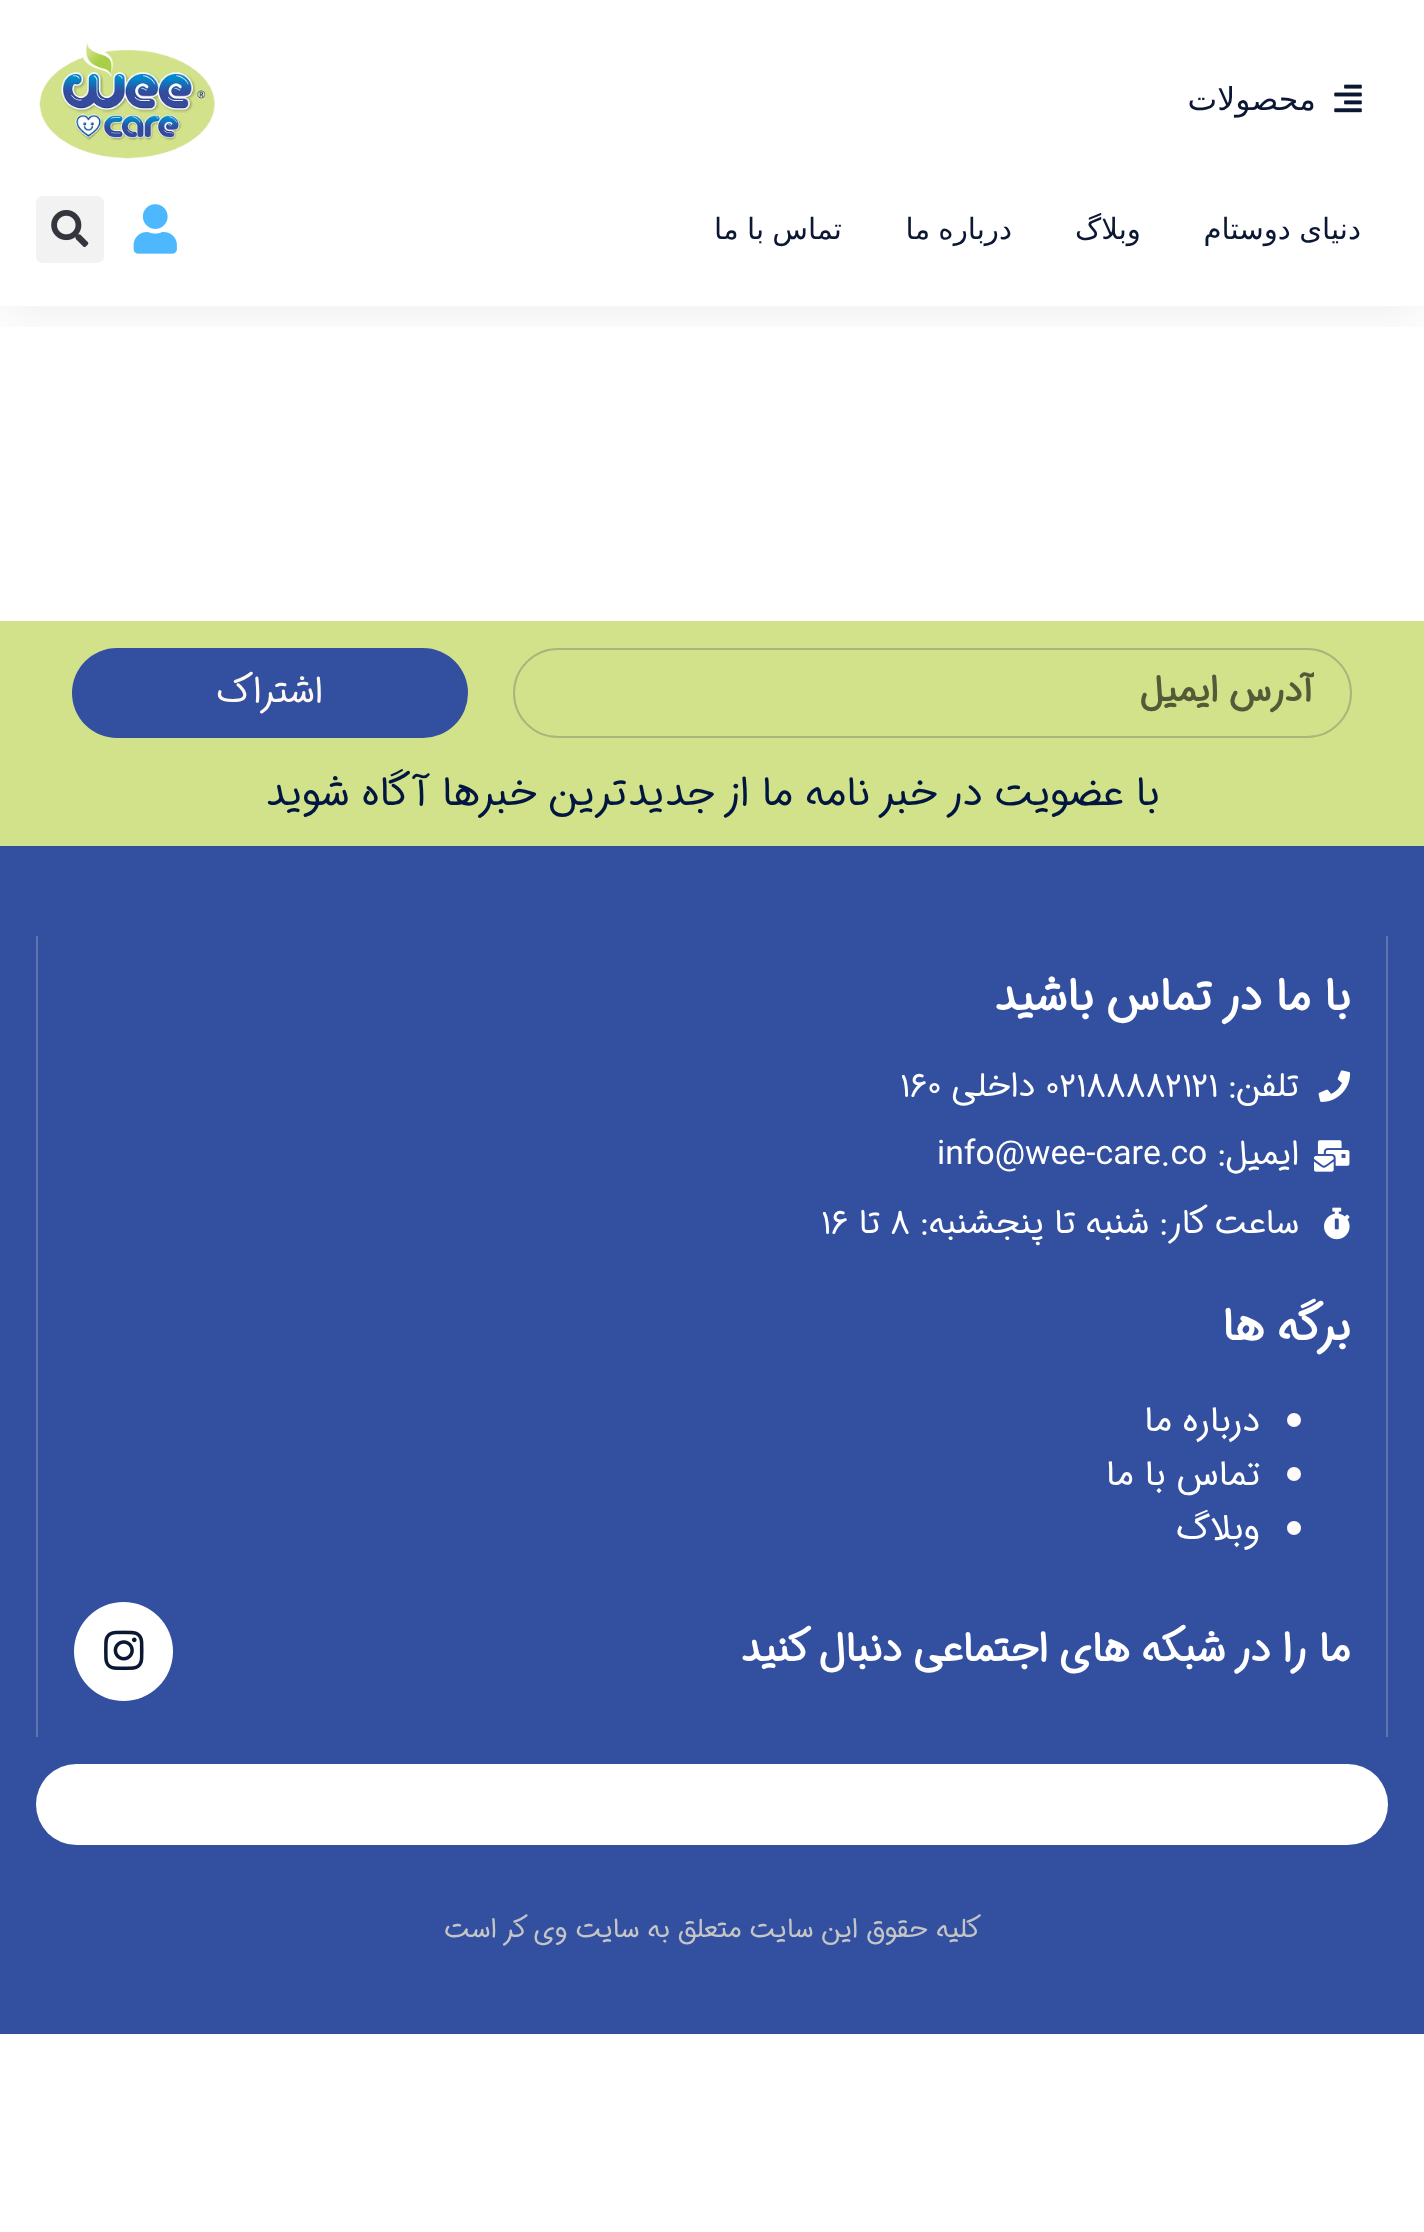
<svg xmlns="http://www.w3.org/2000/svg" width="1424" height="2232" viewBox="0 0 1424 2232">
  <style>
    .t1 { font: 31.5px DejaVu Sans; direction: rtl; fill: #0c1734; }
    .t2 { font: 29.25px DejaVu Sans; direction: rtl; fill: #0c1734; }
    .t3 { font: bold 36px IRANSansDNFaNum; direction: rtl; fill: #545a38; }
    .t4 { font: 36px IRANSansDNFaNum; direction: rtl; fill: #fff7f1; }
    .t5 { font: 40.5px IRANSansDNFaNum; direction: rtl; fill: #011640; }
    .t6 { font: bold 45px IRANSansDNFaNum; direction: rtl; fill: #fff; }
    .t7 { font: 33.75px IRANSansDNFaNum; direction: rtl; fill: #fff; }
    .t8 { font: 33.75px IRANSansDNFaNum; fill: #fff; }
    .t9 { font: 36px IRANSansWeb; direction: rtl; fill: #fff; }
    .t10 { font: bold 40.5px IRANSansDNFaNum; direction: rtl; fill: #fff; }
    .t11 { font: 27px IRANSansDNFaNum; direction: rtl; fill: #c5c5c5; }
  </style>
  <defs>
    <clipPath id="clip1"><rect x="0" y="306" width="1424" height="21"/></clipPath>
    <clipPath id="clip2"><rect x="551" y="664" width="763" height="56"/></clipPath>
  </defs>
  <rect width="100%" height="100%" fill="#fff"/>
  <g clip-path="url(#clip1)">
    <rect x="0" y="11" width="1424" height="306" fill="#0000000f" filter="blur(22.5px)"/>
  </g>
  <image x="1334" y="84" width="28" height="29" href="images/1.png"/>
  <text x="1316" y="110" class="t1">محصولات</text>
  <image x="39" y="41" width="177" height="118" href="images/2.png"/>
  <text x="1361" y="239" word-spacing="-1" class="t2">دنیای دوستام</text>
  <text x="1141" y="239" class="t2">وبلاگ</text>
  <text x="1012" y="239" word-spacing="-1" class="t2">درباره ما</text>
  <text x="842" y="239" word-spacing="-1" class="t2">تماس با ما</text>
  <image x="133" y="204" width="44" height="50" href="images/3.png"/>
  <rect x="36" y="196" width="68" height="67" rx="7" fill="#f2f2f2"/>
  <image x="51" y="210" width="38" height="38" href="images/4.png"/>
  <rect x="0" y="621" width="1424" height="225" fill="#d2e28b"/>
  <rect x="514" y="649" width="837" height="88" rx="44" fill="none" stroke="#a6b77b" stroke-width="2"/>
  <g clip-path="url(#clip2)">
    <text x="1315" y="701" class="t3">آدرس ایمیل</text>
  </g>
  <rect x="72" y="648" width="396" height="90" rx="45" fill="#334fa0"/>
  <text x="323" y="702" class="t4">اشتراک</text>
  <text x="1159" y="805" class="t5">با عضویت در خبر نامه ما از جدیدترین خبرها آگاه شوید</text>
  <rect x="0" y="846" width="1424" height="1188" fill="#334fa0"/>
  <rect x="1386" y="936" width="2" height="801" fill="#6074b2"/>
  <rect x="36" y="936" width="2" height="801" fill="#6074b2"/>
  <text x="1350" y="1010" class="t6">با ما در تماس باشید</text>
  <image x="1318" y="1070" width="33" height="32" href="images/5.png"/>
  <text x="1299" y="1096" class="t7">تلفن:</text>
  <text x="1045" y="1096" class="t8">02188882121</text>
  <text x="1035" y="1096" class="t7">داخلی</text>
  <text x="900" y="1096" class="t8">160</text>
  <image x="1314" y="1140" width="36" height="32" href="images/6.png"/>
  <text x="1299" y="1164" class="t7">ایمیل:</text>
  <text x="937" y="1164" class="t8">info@wee-care.co</text>
  <image x="1324" y="1207" width="26" height="33" href="images/7.png"/>
  <text x="1299" y="1233" class="t7">ساعت کار: شنبه تا پنجشنبه:</text>
  <text x="890" y="1233" class="t8">8</text>
  <text x="880" y="1233" class="t7">تا</text>
  <text x="821" y="1233" class="t8">16</text>
  <text x="1350" y="1340" class="t6">برگه ها</text>
  <circle cx="1294" cy="1420" r="7" fill="#fffafa"/>
  <text x="1260" y="1431" class="t9">درباره ما</text>
  <circle cx="1294" cy="1474" r="7" fill="#fffafa"/>
  <text x="1260" y="1485" class="t9">تماس با ما</text>
  <circle cx="1294" cy="1528" r="7" fill="#fffafa"/>
  <text x="1260" y="1539" class="t9">وبلاگ</text>
  <text x="1350" y="1661" class="t10">ما را در شبکه های اجتماعی دنبال کنید</text>
  <circle cx="123.5" cy="1651.5" r="49.5" fill="#fff"/>
  <image x="104" y="1630" width="40" height="41" href="images/8.png"/>
  <rect x="36" y="1764" width="1352" height="81" rx="40.5" fill="#fff"/>
  <text x="981" y="1937" class="t11">کلیه حقوق این سایت متعلق به سایت وی کر است</text>
</svg>
